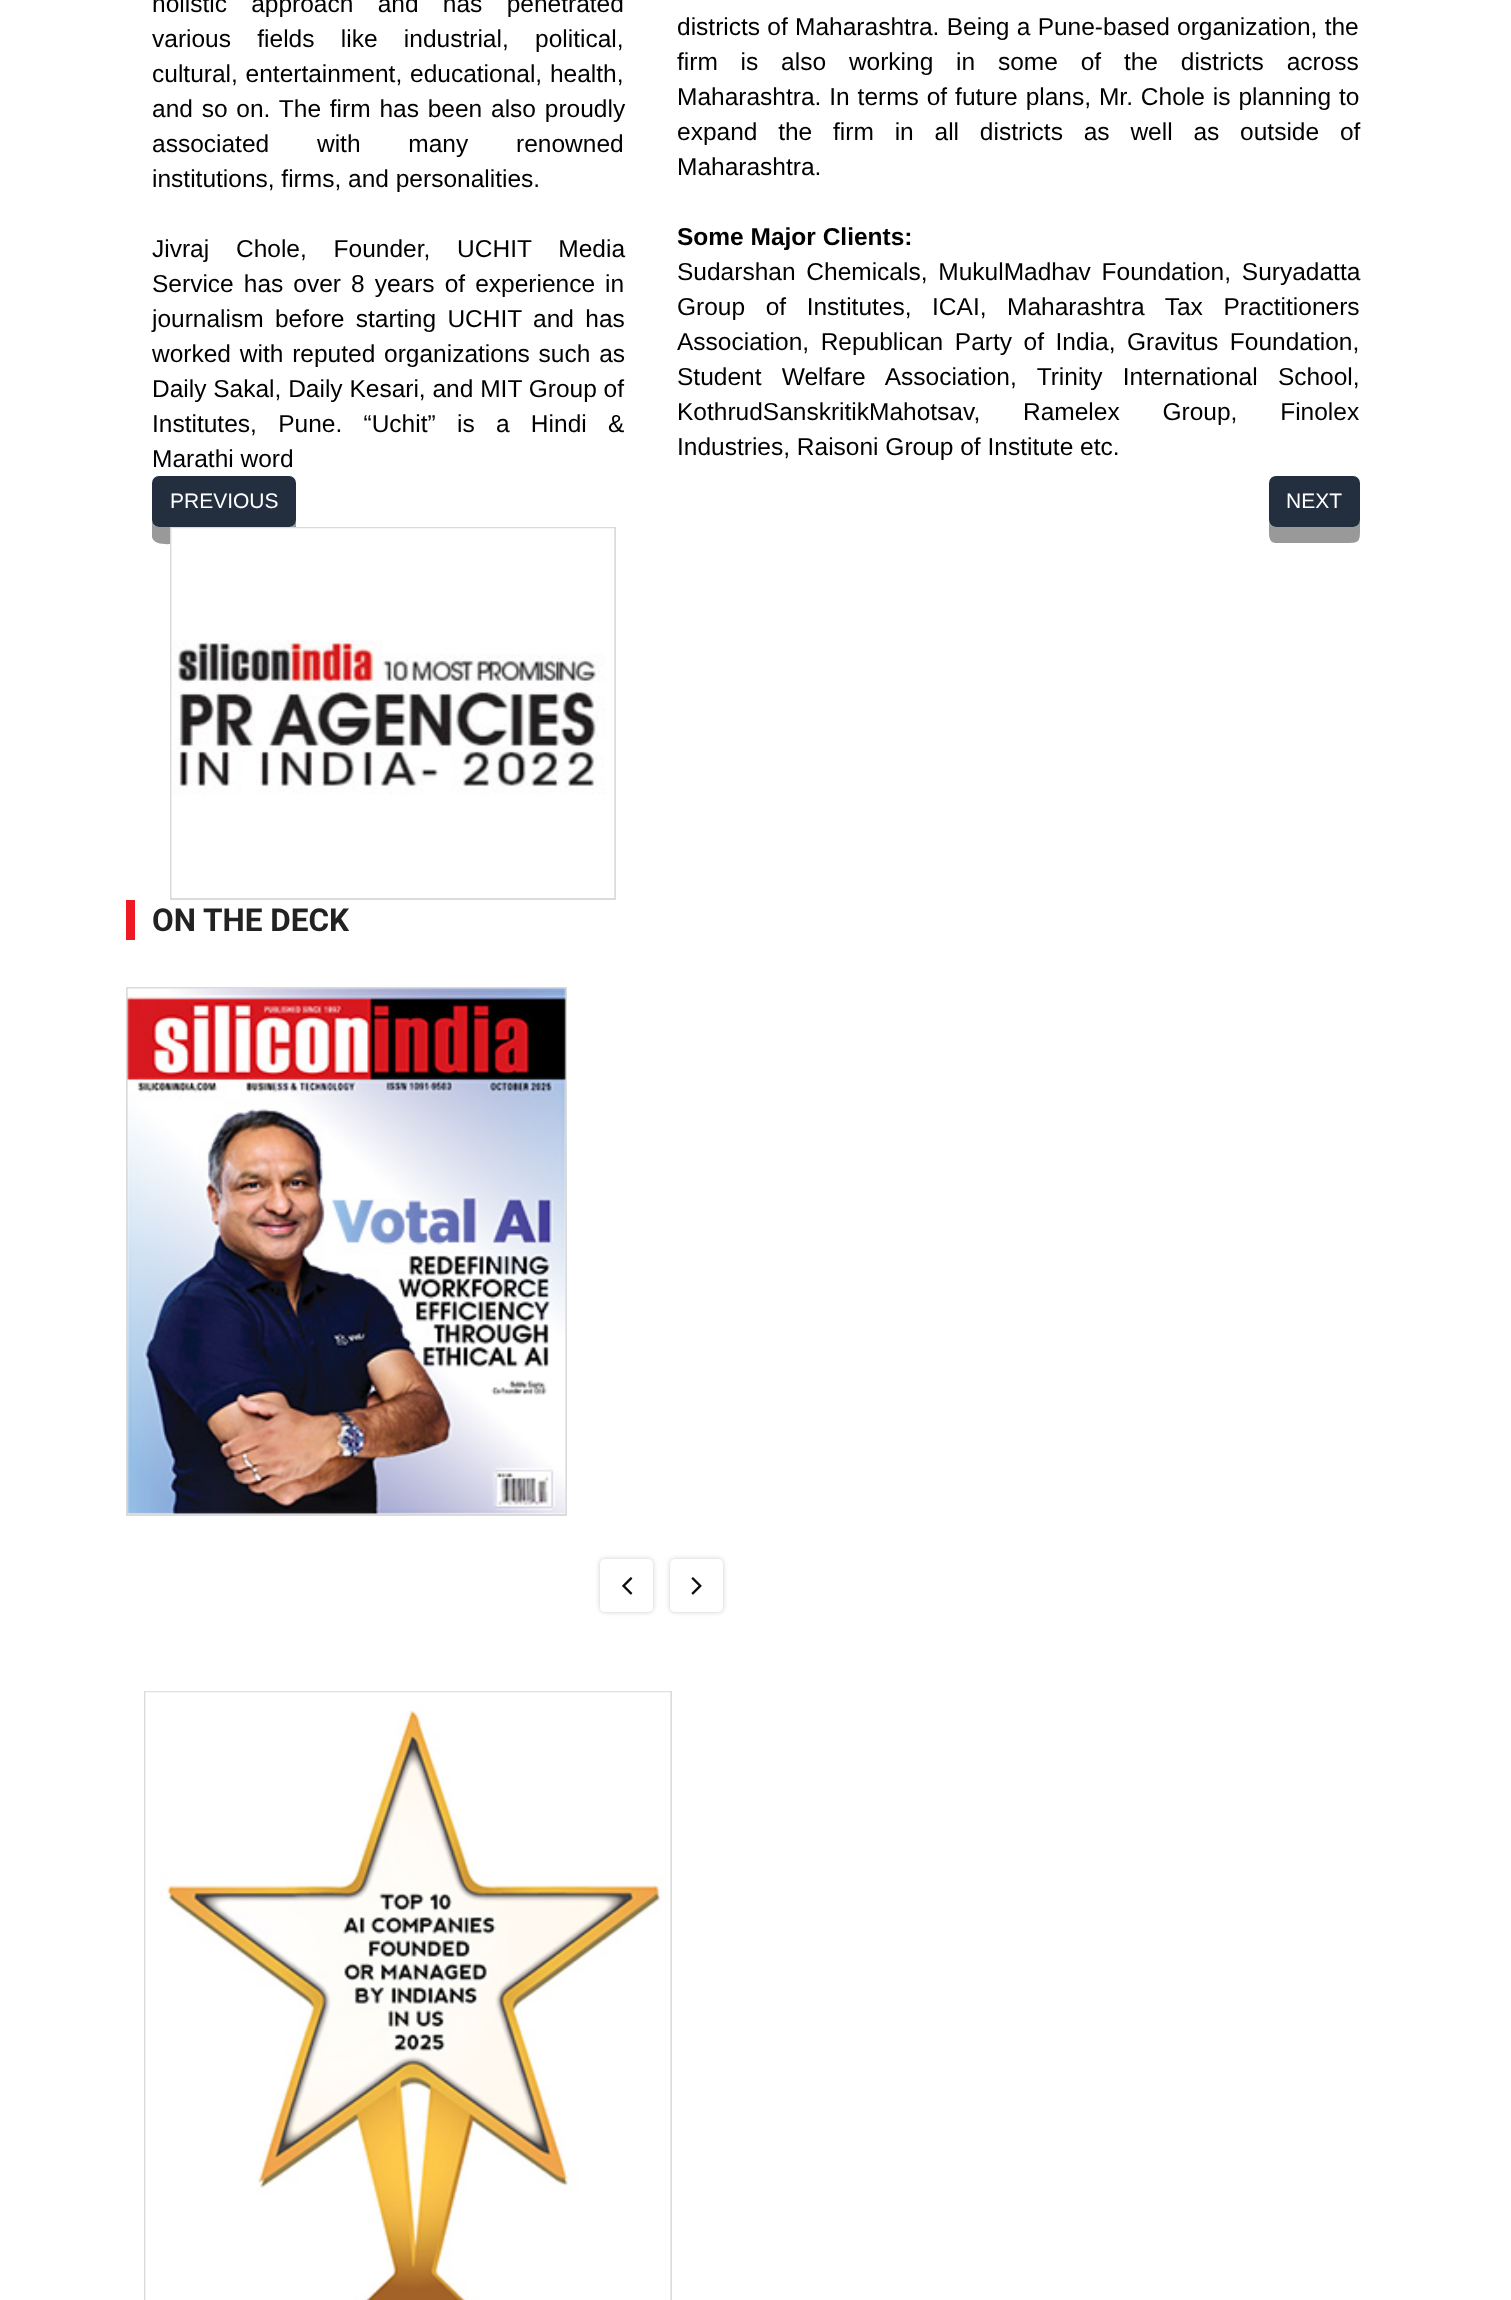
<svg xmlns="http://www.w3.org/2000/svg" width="1511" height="2300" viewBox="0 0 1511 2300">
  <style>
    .t1 { font: 24.5px Liberation Sans; fill: #000; }
    .t2 { font: bold 24.5px Liberation Sans; fill: #000; }
    .t3 { font: 21px Liberation Sans; fill: #fff; }
    .t4 { font: bold 31.5px Roboto; fill: #222; }
  </style>
  <rect width="100%" height="100%" fill="#fff"/>
  <text x="152" y="12" word-spacing="17.5" class="t1">holistic approach and has penetrated</text>
  <text x="152" y="47" word-spacing="19.5" class="t1">various fields like industrial, political,</text>
  <text x="152" y="82" word-spacing="1" class="t1">cultural, entertainment, educational, health,</text>
  <text x="152" y="117" word-spacing="2" class="t1">and so on. The firm has been also proudly</text>
  <text x="152" y="152" word-spacing="41" class="t1">associated with many renowned</text>
  <text x="152" y="187" class="t1">institutions, firms, and personalities.</text>
  <text x="152" y="257" word-spacing="20" class="t1">Jivraj Chole, Founder, UCHIT Media</text>
  <text x="152" y="292" word-spacing="3.25" class="t1">Service has over 8 years of experience in</text>
  <text x="152" y="327" word-spacing="4.5" class="t1">journalism before starting UCHIT and has</text>
  <text x="152" y="362" word-spacing="2" class="t1">worked with reputed organizations such as</text>
  <text x="152" y="397" class="t1">Daily Sakal, Daily Kesari, and MIT Group of</text>
  <text x="152" y="432" word-spacing="14.5" class="t1">Institutes, Pune. “Uchit” is a Hindi &amp;</text>
  <text x="152" y="467" class="t1">Marathi word</text>
  <text x="677" y="35" word-spacing="0.5" class="t1">districts of Maharashtra. Being a Pune-based organization, the</text>
  <text x="677" y="70" word-spacing="16" class="t1">firm is also working in some of the districts across</text>
  <text x="677" y="105" word-spacing="1.1" class="t1">Maharashtra. In terms of future plans, Mr. Chole is planning to</text>
  <text x="677" y="140" word-spacing="14" class="t1">expand the firm in all districts as well as outside of</text>
  <text x="677" y="175" class="t1">Maharashtra.</text>
  <text x="677" y="245" class="t2">Some Major Clients:</text>
  <text x="677" y="280" word-spacing="4" class="t1">Sudarshan Chemicals, MukulMadhav Foundation, Suryadatta</text>
  <text x="677" y="315" word-spacing="13.75" class="t1">Group of Institutes, ICAI, Maharashtra Tax Practitioners</text>
  <text x="677" y="350" word-spacing="4.75" class="t1">Association, Republican Party of India, Gravitus Foundation,</text>
  <text x="677" y="385" word-spacing="13.5" class="t1">Student Welfare Association, Trinity International School,</text>
  <text x="677" y="420" word-spacing="36" class="t1">KothrudSanskritikMahotsav, Ramelex Group, Finolex</text>
  <text x="677" y="455" class="t1">Industries, Raisoni Group of Institute etc.</text>
  <path d="M152 497V537C154 548 179 543 181 543H267C269 543 294 548 296 537V497V520C296 524 293 527 289 527H159C155 527 152 524 152 520Z" fill="#999"/>
  <rect x="152" y="476" width="144" height="51" rx="7" fill="#232f3e"/>
  <text x="170" y="508" class="t3">PREVIOUS</text>
  <path d="M1269 522V531C1269 536 1269 542 1275 543H1340C1361 543 1360 544 1360 524V497V520C1360 524 1357 527 1353 527H1276C1273 527 1270 525 1269 522Z" fill="#999"/>
  <rect x="1269" y="476" width="91" height="51" rx="7" fill="#232f3e"/>
  <text x="1286" y="508" class="t3">NEXT</text>
  <rect x="171" y="528" width="444" height="371" fill="none" stroke="#dbdbdb" stroke-width="2"/>
  <image x="171" y="528" width="444" height="370" href="images/1.png"/>
  <rect x="126" y="900" width="9" height="40" fill="#ee1922"/>
  <text x="152" y="931" class="t4">ON THE DECK</text>
  <rect x="127" y="988" width="439" height="527" fill="none" stroke="#dbdbdb" stroke-width="2"/>
  <image x="127" y="988" width="439" height="526" href="images/2.png"/>
  <rect x="600" y="1559" width="53" height="53" rx="5" fill="#00000033" filter="blur(2.5px)"/>
  <rect x="600" y="1559" width="53" height="53" rx="5" fill="#fff"/>
  <image x="622" y="1577" width="11" height="18" href="images/3.png"/>
  <rect x="670" y="1559" width="53" height="53" rx="5" fill="#00000033" filter="blur(2.5px)"/>
  <rect x="670" y="1559" width="53" height="53" rx="5" fill="#fff"/>
  <image x="691" y="1577" width="11" height="18" href="images/4.png"/>
  <rect x="145" y="1692" width="526" height="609" fill="none" stroke="#dbdbdb" stroke-width="2"/>
  <image x="145" y="1691" width="526" height="609" href="images/5.png"/>
</svg>
